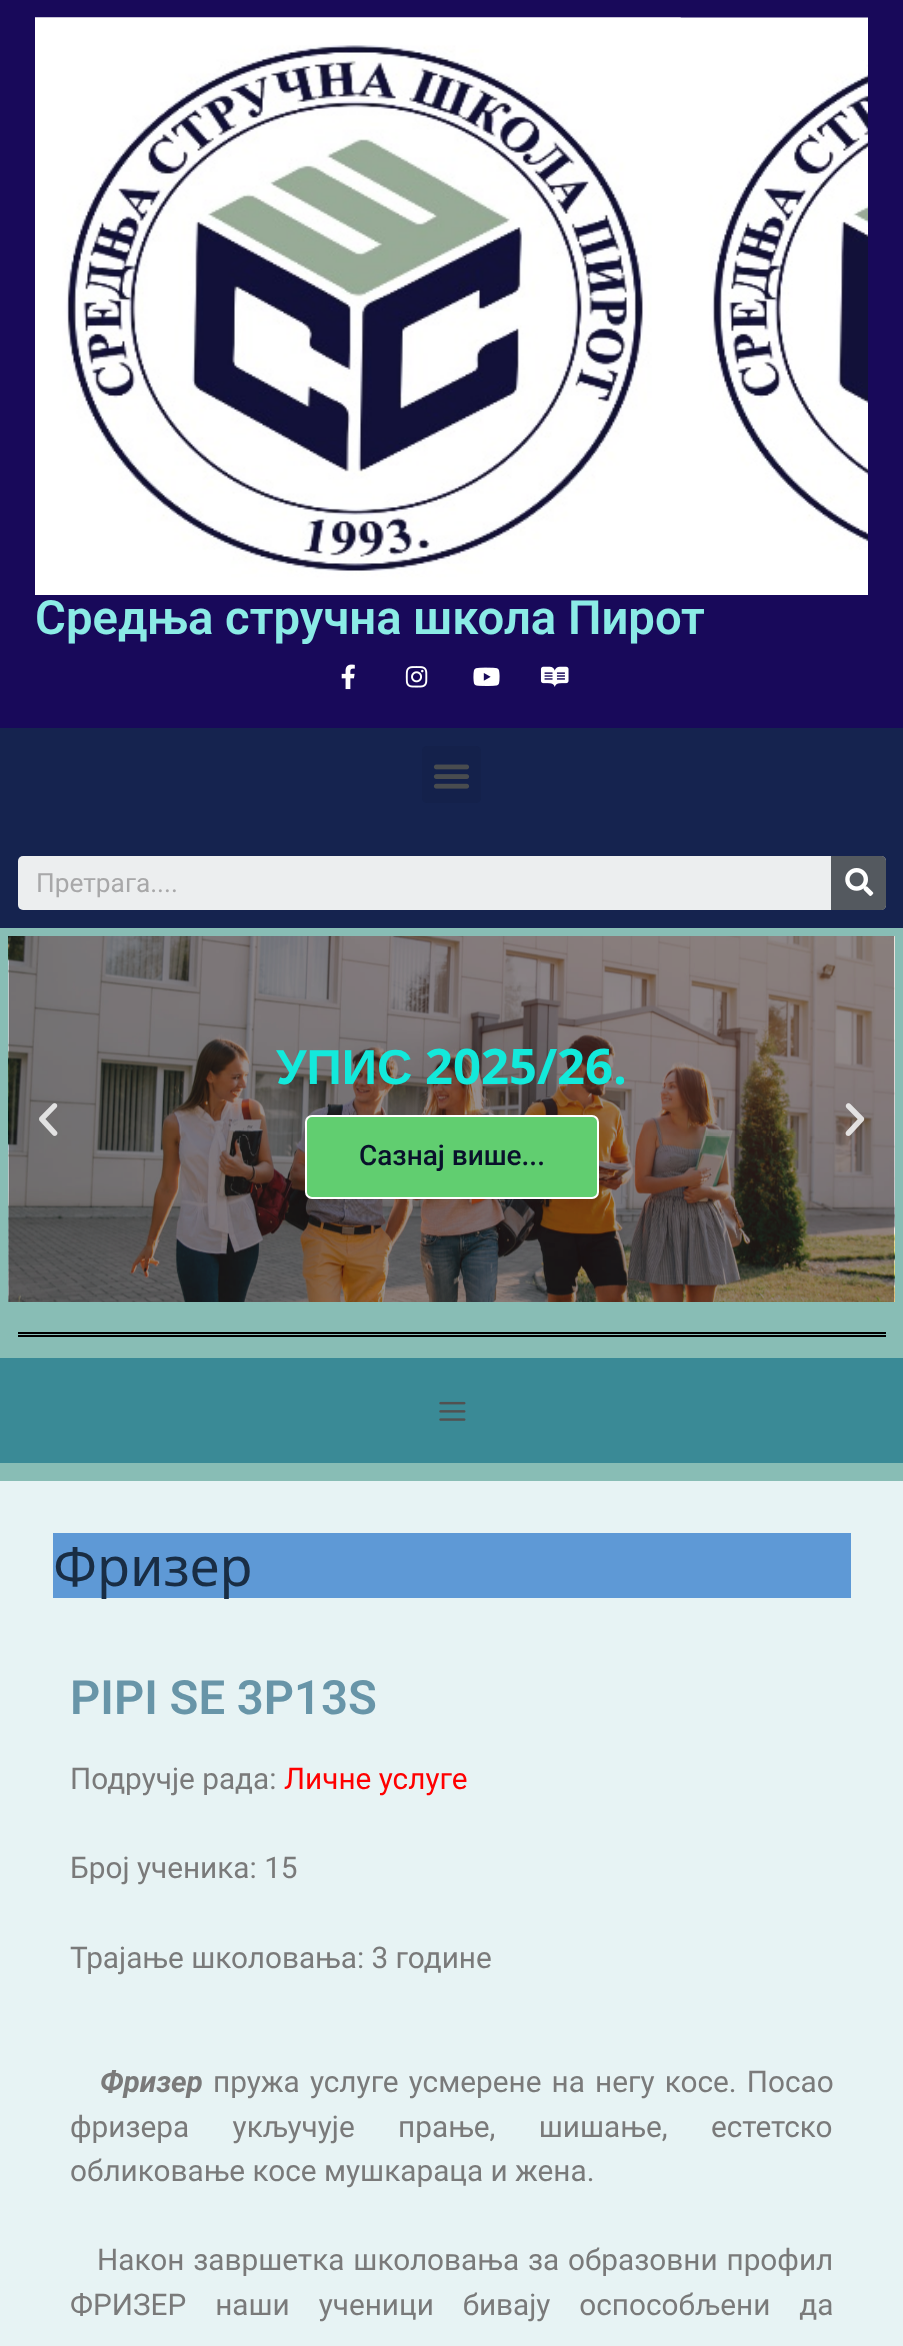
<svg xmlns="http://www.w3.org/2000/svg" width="903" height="2346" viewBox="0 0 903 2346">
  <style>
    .t1 { font: 600 47.25px Roboto; fill: #8bebe6; }
    .t2 { font: 26.25px Roboto; fill: #a8a8a9; }
    .t3 { font: bold 49px Liberation Sans; fill: #13e9db; }
    .t4 { font: bold 49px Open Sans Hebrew; fill: #13e9db; }
    .t5 { font: 500 28px Roboto; fill: #09112b; }
    .t6 { font: 54px Noto Sans; fill: #192d44; }
    .t7 { font: 600 47.25px Roboto; fill: #6895a8; }
    .t8 { font: 29.75px Roboto; fill: #7a7a7a; }
    .t9 { font: 29.75px Roboto; fill: #f00; }
    .t10 { font: italic bold 29.75px Roboto; fill: #7a7a7a; }
  </style>
  <rect width="100%" height="100%" fill="#88bdb5"/>
  <rect x="0" y="0" width="903" height="728" fill="#18095a"/>
  <image x="35" y="17" width="833" height="578" href="images/1.png"/>
  <image x="35" y="17" width="646" height="553" href="images/2.png"/>
  <text x="35" y="634" class="t1">Средња стручна школа Пирот</text>
  <image x="341" y="664" width="14" height="26" href="images/3.png"/>
  <image x="405" y="666" width="23" height="22" href="images/4.png"/>
  <image x="473" y="667" width="27" height="19" href="images/5.png"/>
  <image x="540" y="666" width="29" height="21" href="images/6.png"/>
  <rect x="0" y="728" width="903" height="200" fill="#15234f"/>
  <rect x="422" y="746" width="59" height="57" rx="5" fill="#14214b"/>
  <image x="433" y="764" width="37" height="25" href="images/7.png"/>
  <rect x="18" y="856" width="868" height="54" rx="5" fill="#eceeef"/>
  <text x="36" y="892" class="t2">Претрага....</text>
  <path d="M831 856H881C884 856 886 858 886 861V905C886 908 884 910 881 910H831Z" fill="#54595f"/>
  <image x="845" y="868" width="29" height="28" href="images/8.png"/>
  <image x="8" y="936" width="887" height="366" href="images/10.png"/>
  <image x="39" y="1103" width="19" height="33" href="images/9.png"/>
  <text x="276" y="1084" class="t3">УПИС</text>
  <text x="425" y="1084" class="t4">2025/26.</text>
  <rect x="306" y="1116" width="292" height="82" rx="6" fill="#61ce70" stroke="#fff" stroke-width="2"/>
  <text x="359" y="1165" class="t5">Сазнај више...</text>
  <image x="845" y="1103" width="20" height="33" href="images/11.png"/>
  <rect x="18" y="1332" width="868" height="2" fill="#000"/>
  <rect x="18" y="1335" width="868" height="2" fill="#000"/>
  <rect x="0" y="1358" width="903" height="105" fill="#3a8a96"/>
  <image x="439" y="1401" width="27" height="20" href="images/12.png"/>
  <rect x="0" y="1481" width="903" height="865" fill="#e7f3f4"/>
  <rect x="53" y="1533" width="798" height="65" fill="#5e99d6"/>
  <text x="53" y="1586" class="t6">Фризер</text>
  <text x="70" y="1714" class="t7">PIPI SE 3P13S</text>
  <text x="70" y="1789" class="t8">Подручје рада:</text>
  <text x="284" y="1789" class="t9">Личне услуге</text>
  <text x="70" y="1878" class="t8">Број ученика: 15</text>
  <text x="70" y="1968" class="t8">Трајање школовања: 3 године</text>
  <text x="100" y="2092" class="t10">Фризер</text>
  <text x="213" y="2092" word-spacing="2.75" class="t8">пружа услуге усмерене на негу косе. Посао</text>
  <text x="70" y="2137" word-spacing="36" class="t8">фризера укључује прање, шишање, естетско</text>
  <text x="70" y="2181" class="t8">обликовање косе мушкараца и жена.</text>
  <text x="97" y="2270" word-spacing="1.5" class="t8">Након завршетка школовања за образовни профил</text>
  <text x="70" y="2315" word-spacing="21.5" class="t8">ФРИЗЕР наши ученици бивају оспособљени да</text>
</svg>
